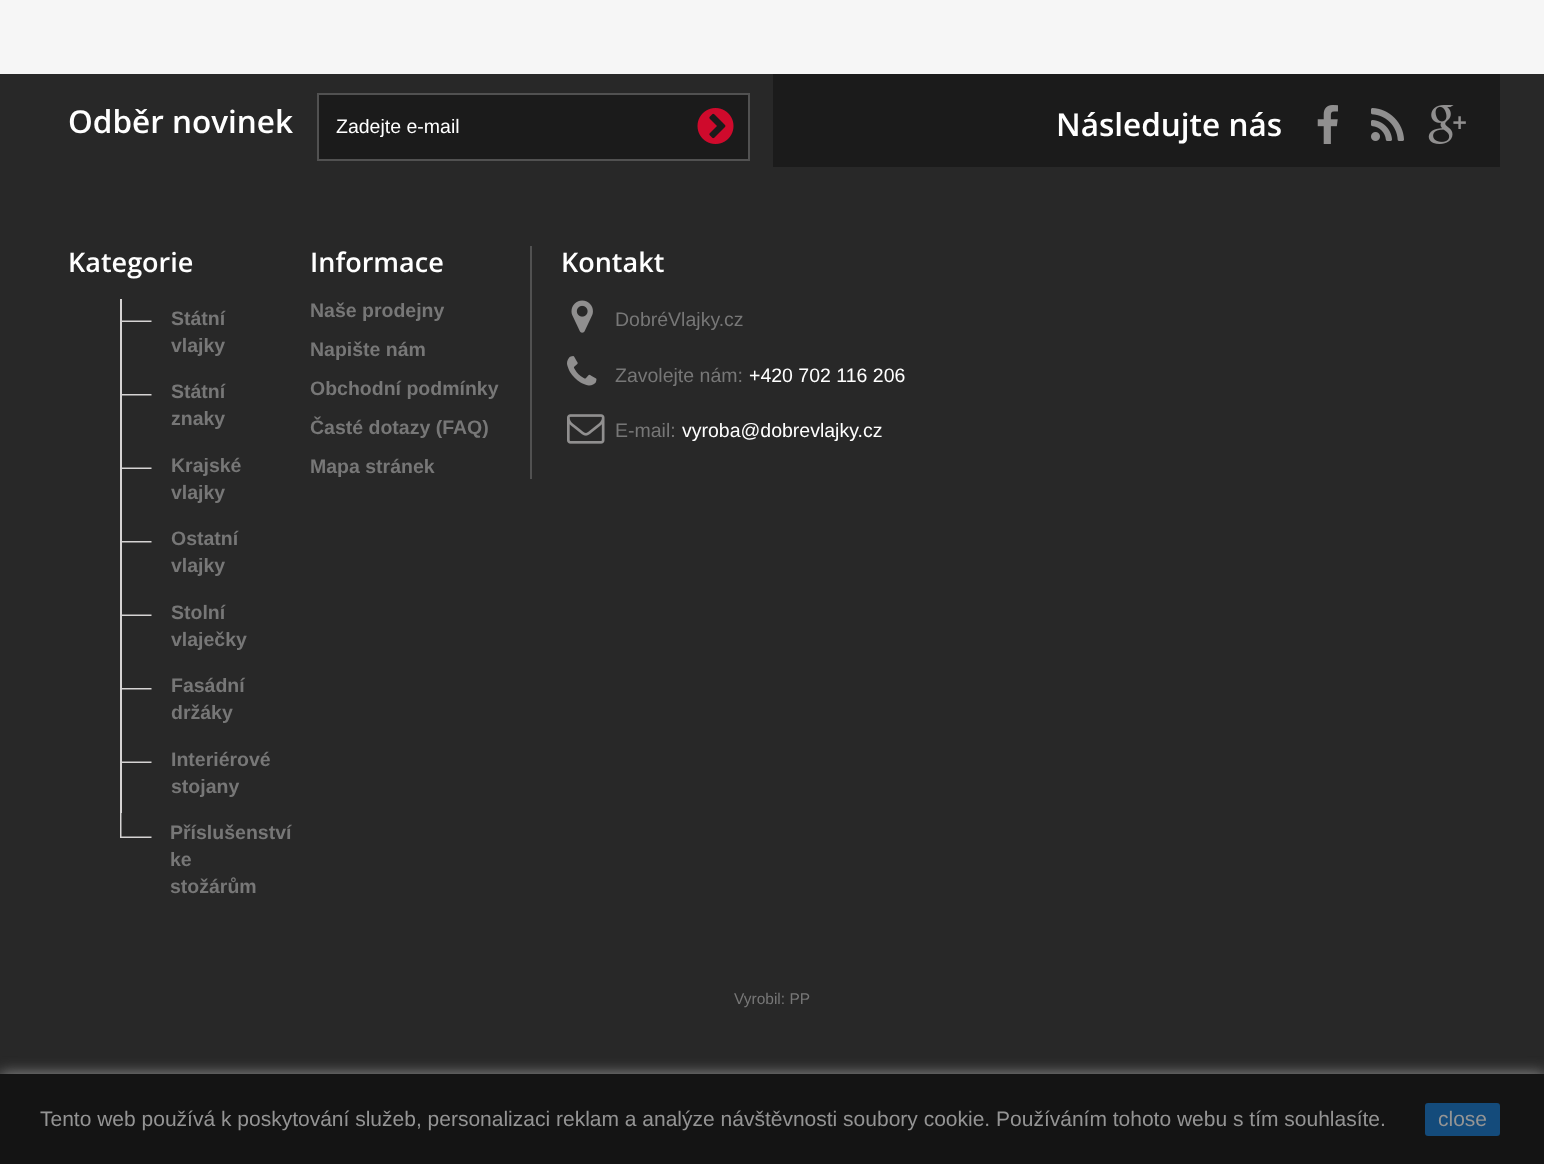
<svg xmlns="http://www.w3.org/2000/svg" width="1544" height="1164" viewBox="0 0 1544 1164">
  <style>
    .t1 { font: 600 31.5px Open Sans; fill: #fff; }
    .t2 { font: 19.5px Liberation Sans; fill: #fff; }
    .t3 { font: 600 27px Open Sans; fill: #fff; }
    .t4 { font: bold 19.5px Liberation Sans; fill: #777; }
    .t5 { font: 19.5px Liberation Sans; fill: #777; }
    .t6 { font: 21px Liberation Sans; fill: #949494; }
    .t7 { font: 15.5px Liberation Sans; fill: #777; }
  </style>
  <rect width="100%" height="100%" fill="#282828"/>
  <rect x="0" y="0" width="1544" height="74" fill="#f6f6f6"/>
  <text x="68" y="133" class="t1">Odběr novinek</text>
  <rect x="318" y="94" width="431" height="66" fill="#1b1b1b" stroke="#515151" stroke-width="2"/>
  <text x="336" y="133" class="t2">Zadejte e-mail</text>
  <image x="697" y="108" width="37" height="36" href="images/1.png"/>
  <rect x="773" y="74" width="727" height="93" fill="#1b1b1b"/>
  <text x="1056" y="136" class="t1">Následujte nás</text>
  <image x="1317" y="105" width="21" height="39" href="images/2.png"/>
  <image x="1371" y="108" width="33" height="33" href="images/3.png"/>
  <image x="1428" y="105" width="38" height="39" href="images/4.png"/>
  <text x="68" y="272" class="t3">Kategorie</text>
  <image x="122" y="320" width="30" height="2" href="images/5.png"/>
  <rect x="120" y="299" width="2" height="514" fill="#d6d4d4"/>
  <text x="171" y="325" class="t4">Státní</text>
  <text x="171" y="352" class="t4">vlajky</text>
  <image x="122" y="394" width="30" height="2" href="images/6.png"/>
  <text x="171" y="398" class="t4">Státní</text>
  <text x="171" y="425" class="t4">znaky</text>
  <image x="122" y="467" width="30" height="2" href="images/5.png"/>
  <text x="171" y="472" class="t4">Krajské</text>
  <text x="171" y="499" class="t4">vlajky</text>
  <image x="122" y="541" width="30" height="2" href="images/6.png"/>
  <text x="171" y="545" class="t4">Ostatní</text>
  <text x="171" y="572" class="t4">vlajky</text>
  <image x="122" y="614" width="30" height="2" href="images/5.png"/>
  <text x="171" y="619" class="t4">Stolní</text>
  <text x="171" y="646" class="t4">vlaječky</text>
  <image x="122" y="688" width="30" height="2" href="images/6.png"/>
  <text x="171" y="692" class="t4">Fasádní</text>
  <text x="171" y="719" class="t4">držáky</text>
  <image x="122" y="761" width="30" height="2" href="images/5.png"/>
  <text x="171" y="766" class="t4">Interiérové</text>
  <text x="171" y="793" class="t4">stojany</text>
  <image x="120" y="813" width="32" height="25" href="images/7.png"/>
  <text x="170" y="839" class="t4">Příslušenství</text>
  <text x="170" y="866" class="t4">ke</text>
  <text x="170" y="893" class="t4">stožárům</text>
  <text x="310" y="272" class="t3">Informace</text>
  <text x="310" y="317" class="t4">Naše prodejny</text>
  <text x="310" y="356" class="t4">Napište nám</text>
  <text x="310" y="395" class="t4">Obchodní podmínky</text>
  <text x="310" y="434" class="t4">Časté dotazy (FAQ)</text>
  <text x="310" y="473" class="t4">Mapa stránek</text>
  <rect x="530" y="246" width="2" height="233" fill="#515151"/>
  <text x="561" y="272" class="t3">Kontakt</text>
  <image x="571" y="300" width="22" height="33" href="images/8.png"/>
  <text x="615" y="326" class="t5">DobréVlajky.cz</text>
  <image x="567" y="356" width="30" height="30" href="images/9.png"/>
  <text x="615" y="382" class="t5">Zavolejte nám:</text>
  <text x="749" y="382" class="t2">+420 702 116 206</text>
  <image x="567" y="414" width="38" height="30" href="images/10.png"/>
  <text x="615" y="437" class="t5">E-mail:</text>
  <text x="682" y="437" class="t2">vyroba@dobrevlajky.cz</text>
  <rect x="0" y="1074" width="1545" height="90" fill="#949494" filter="blur(7.5px)"/>
  <rect x="0" y="1074" width="1544" height="90" fill="#141414"/>
  <text x="40" y="1126" class="t6">Tento web používá k poskytování služeb, personalizaci reklam a analýze návštěvnosti soubory cookie. Používáním tohoto webu s tím souhlasíte.</text>
  <rect x="1425" y="1103" width="75" height="33" rx="3" fill="#144b7b"/>
  <text x="1438" y="1126" class="t6">close</text>
  <text x="734" y="1004" class="t7">Vyrobil: PP</text>
</svg>
